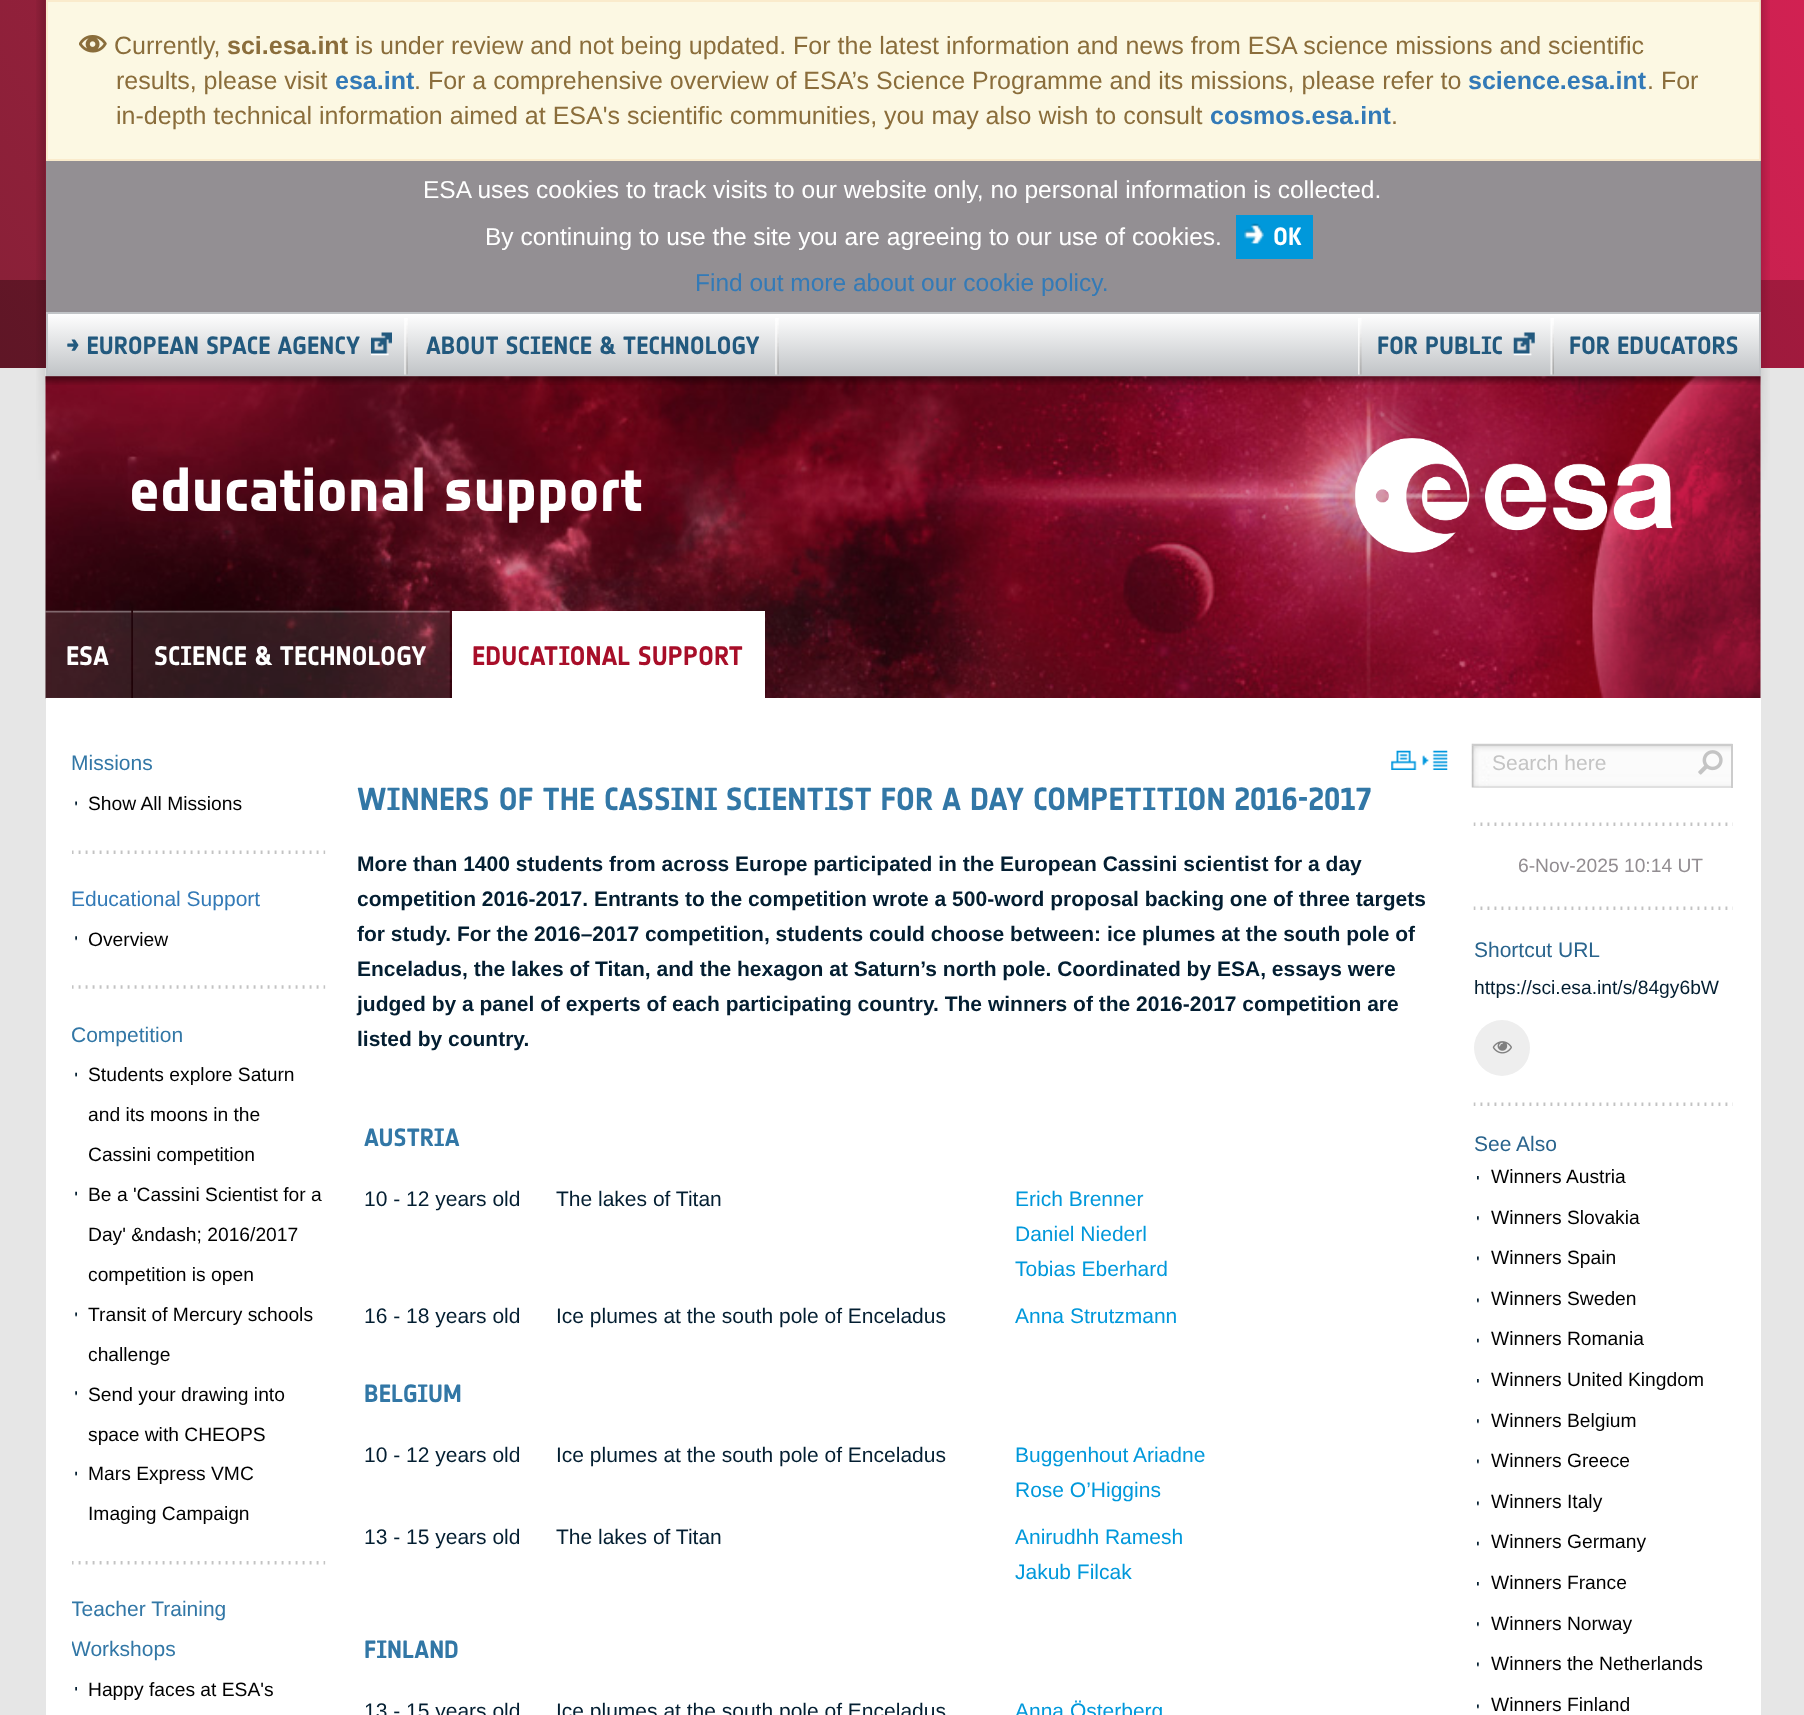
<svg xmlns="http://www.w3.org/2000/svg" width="1804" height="1715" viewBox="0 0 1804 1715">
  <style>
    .t1 { font: 25.03px Liberation Sans; fill: #8a6d3b; }
    .t2 { font: bold 25.03px Liberation Sans; fill: #8a6d3b; }
    .t3 { font: bold 25.03px Liberation Sans; fill: #337ab7; }
    .t4 { font: 24.5px Liberation Sans; fill: #fff; }
    .t5 { font: bold 24.5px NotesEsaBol; fill: #fff; }
    .t6 { font: 24.5px Liberation Sans; fill: #337ab7; }
    .t7 { font: bold 24.5px NotesEsaBol; fill: #22597e; }
    .t8 { font: bold 61.25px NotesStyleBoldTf; fill: #fff; }
    .t9 { font: bold 26.25px NotesEsaBol; fill: #fff; }
    .t10 { font: bold 26.25px NotesEsaBol; fill: #a80e29; }
    .t11 { font: 21px Liberation Sans; fill: #3277a6; }
    .t12 { font: 19.25px Liberation Sans; fill: #000; }
    .t13 { font: 21px Liberation Sans; fill: #337ab7; }
    .t14 { font: bold 31.5px NotesEsaBol; fill: #3277a6; }
    .t15 { font: bold 21px Liberation Sans; fill: #031e31; }
    .t16 { font: bold 24.5px NotesEsaBol; fill: #3277a6; }
    .t17 { font: 21px Liberation Sans; fill: #031e31; }
    .t18 { font: 21px Liberation Sans; fill: #0098db; }
    .t19 { font: 21px Liberation Sans; fill: #c4c4c4; }
    .t20 { font: 19.25px Liberation Sans; fill: #928d91; }
    .t21 { font: 21px Liberation Sans; fill: #29648d; }
    .t22 { font: 19.25px Liberation Sans; fill: #031e31; }
  </style>
  <defs>
    <linearGradient id="g1" gradientUnits="userSpaceOnUse" x1="165" y1="566" x2="1639" y2="-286"><stop offset="0" stop-color="#8a2038"/><stop offset="1" stop-color="#d12152"/></linearGradient>
    <linearGradient id="g2" gradientUnits="userSpaceOnUse" x1="207" y1="725" x2="1598" y2="-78"><stop offset="0" stop-color="#5f1626"/><stop offset="1" stop-color="#a21a3e"/></linearGradient>
    <linearGradient id="g3" gradientUnits="userSpaceOnUse" x1="903" y1="313" x2="903" y2="375"><stop offset="0" stop-color="#fff"/><stop offset="1" stop-color="#c1c4c7"/></linearGradient>
    <clipPath id="clip1"><rect x="72" y="1591" width="254" height="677"/></clipPath>
  </defs>
  <rect width="100%" height="100%" fill="#e6e6e6"/>
  <rect x="0" y="0" width="1804" height="280" fill="url(#g1)"/>
  <rect x="0" y="280" width="1804" height="88" fill="url(#g2)"/>
  <image x="36" y="0" width="10" height="480" href="images/1.png"/>
  <rect x="47" y="1" width="1713" height="159" fill="#fcf8e3" stroke="#faebcc" stroke-width="2"/>
  <image x="79" y="35" width="28" height="18" href="images/2.png"/>
  <text x="114" y="54" class="t1">Currently,</text>
  <text x="227" y="54" class="t2">sci.esa.int</text>
  <text x="355" y="54" class="t1">is under review and not being updated. For the latest information and news from ESA science missions and scientific</text>
  <text x="116" y="89" class="t1">results, please visit</text>
  <text x="335" y="89" class="t3">esa.int</text>
  <text x="414" y="89" class="t1">. For a comprehensive overview of ESA’s Science Programme and its missions, please refer to</text>
  <text x="1468" y="89" class="t3">science.esa.int</text>
  <text x="1647" y="89" class="t1">. For</text>
  <text x="116" y="124" class="t1">in-depth technical information aimed at ESA's scientific communities, you may also wish to consult</text>
  <text x="1210" y="124" class="t3">cosmos.esa.int</text>
  <text x="1391" y="124" class="t1">.</text>
  <rect x="46" y="161" width="1715" height="151" fill="#938f93"/>
  <image x="45" y="376" width="1716" height="323" href="images/10.png"/>
  <image x="45" y="376" width="1716" height="9" href="images/11.png"/>
  <image x="1760" y="0" width="10" height="480" href="images/3.png"/>
  <text x="423" y="198" class="t4">ESA uses cookies to track visits to our website only, no personal information is collected.</text>
  <text x="485" y="245" class="t4">By continuing to use the site you are agreeing to our use of cookies.</text>
  <rect x="1236" y="215" width="77" height="44" fill="#0098db"/>
  <image x="1244" y="223" width="20" height="21" href="images/4.png"/>
  <text x="1273" y="245" class="t5">OK</text>
  <text x="695" y="291" class="t6">Find out more about our cookie policy.</text>
  <rect x="48" y="314" width="1711" height="60" fill="url(#g3)"/>
  <rect x="47" y="313" width="1713" height="62" fill="none" stroke="#c1c4c7" stroke-width="2"/>
  <image x="404" y="318" width="4" height="57" href="images/5.png"/>
  <image x="371" y="332" width="21" height="24" href="images/6.png"/>
  <text x="66" y="354" class="t7">→ EUROPEAN SPACE AGENCY</text>
  <image x="775" y="318" width="4" height="57" href="images/5.png"/>
  <text x="426" y="354" class="t7">ABOUT SCIENCE &amp; TECHNOLOGY</text>
  <image x="1358" y="318" width="4" height="57" href="images/7.png"/>
  <image x="1513" y="332" width="22" height="24" href="images/8.png"/>
  <text x="1377" y="354" class="t7">FOR PUBLIC</text>
  <image x="1550" y="318" width="4" height="57" href="images/9.png"/>
  <text x="1569" y="354" class="t7">FOR EDUCATORS</text>
  <text x="129" y="511" class="t8">educational support</text>
  <image x="1355" y="438" width="318" height="115" href="images/12.png"/>
  <image x="45" y="610" width="87" height="89" href="images/13.png"/>
  <text x="66" y="665" class="t9">ESA</text>
  <image x="133" y="610" width="317" height="88" href="images/14.png"/>
  <text x="154" y="665" class="t9">SCIENCE &amp; TECHNOLOGY</text>
  <rect x="452" y="611" width="313" height="87" fill="#fff"/>
  <text x="472" y="665" class="t10">EDUCATIONAL SUPPORT</text>
  <rect x="46" y="698" width="1715" height="1017" fill="#fff"/>
  <text x="71" y="770" class="t11">Missions</text>
  <image x="75" y="801" width="2" height="5" href="images/15.png"/>
  <text x="88" y="810" class="t12">Show All Missions</text>
  <image x="72" y="850" width="254" height="4" href="images/16.png"/>
  <text x="71" y="906" class="t13">Educational Support</text>
  <image x="75" y="936" width="2" height="5" href="images/17.png"/>
  <text x="88" y="946" class="t12">Overview</text>
  <image x="72" y="985" width="254" height="4" href="images/18.png"/>
  <text x="71" y="1042" class="t11">Competition</text>
  <image x="75" y="1072" width="2" height="5" href="images/19.png"/>
  <text x="88" y="1081" class="t12">Students explore Saturn</text>
  <text x="88" y="1121" class="t12">and its moons in the</text>
  <text x="88" y="1161" class="t12">Cassini competition</text>
  <image x="75" y="1191" width="2" height="5" href="images/19.png"/>
  <text x="88" y="1201" class="t12">Be a 'Cassini Scientist for a</text>
  <text x="88" y="1241" class="t12">Day' &amp;ndash; 2016/2017</text>
  <text x="88" y="1281" class="t12">competition is open</text>
  <image x="75" y="1312" width="2" height="5" href="images/15.png"/>
  <text x="88" y="1321" class="t12">Transit of Mercury schools</text>
  <text x="88" y="1361" class="t12">challenge</text>
  <image x="75" y="1391" width="2" height="5" href="images/17.png"/>
  <text x="88" y="1401" class="t12">Send your drawing into</text>
  <text x="88" y="1441" class="t12">space with CHEOPS</text>
  <image x="75" y="1471" width="2" height="5" href="images/19.png"/>
  <text x="88" y="1480" class="t12">Mars Express VMC</text>
  <text x="88" y="1520" class="t12">Imaging Campaign</text>
  <image x="72" y="1561" width="254" height="4" href="images/20.png"/>
  <g clip-path="url(#clip1)">
    <text x="71" y="1616" class="t11">Teacher Training</text>
    <text x="71" y="1656" class="t11">Workshops</text>
  </g>
  <image x="75" y="1687" width="2" height="4" href="images/21.png"/>
  <text x="88" y="1696" class="t12">Happy faces at ESA's</text>
  <image x="1391" y="750" width="57" height="20" href="images/22.png"/>
  <text x="357" y="810" class="t14">WINNERS OF THE CASSINI SCIENTIST FOR A DAY COMPETITION 2016-2017</text>
  <text x="357" y="871" class="t15">More than 1400 students from across Europe participated in the European Cassini scientist for a day</text>
  <text x="357" y="906" class="t15">competition 2016-2017. Entrants to the competition wrote a 500-word proposal backing one of three targets</text>
  <text x="357" y="941" class="t15">for study. For the 2016–2017 competition, students could choose between: ice plumes at the south pole of</text>
  <text x="357" y="976" class="t15">Enceladus, the lakes of Titan, and the hexagon at Saturn’s north pole. Coordinated by ESA, essays were</text>
  <text x="357" y="1011" class="t15">judged by a panel of experts of each participating country. The winners of the 2016-2017 competition are</text>
  <text x="357" y="1046" class="t15">listed by country.</text>
  <text x="364" y="1146" class="t16">AUSTRIA</text>
  <text x="364" y="1206" class="t17">10 - 12 years old</text>
  <text x="556" y="1206" class="t17">The lakes of Titan</text>
  <text x="1015" y="1206" class="t18">Erich Brenner</text>
  <text x="1015" y="1241" class="t18">Daniel Niederl</text>
  <text x="1015" y="1276" class="t18">Tobias Eberhard</text>
  <text x="364" y="1323" class="t17">16 - 18 years old</text>
  <text x="556" y="1323" class="t17">Ice plumes at the south pole of Enceladus</text>
  <text x="1015" y="1323" class="t18">Anna Strutzmann</text>
  <text x="364" y="1402" class="t16">BELGIUM</text>
  <text x="364" y="1462" class="t17">10 - 12 years old</text>
  <text x="556" y="1462" class="t17">Ice plumes at the south pole of Enceladus</text>
  <text x="1015" y="1462" class="t18">Buggenhout Ariadne</text>
  <text x="1015" y="1497" class="t18">Rose O’Higgins</text>
  <text x="364" y="1544" class="t17">13 - 15 years old</text>
  <text x="556" y="1544" class="t17">The lakes of Titan</text>
  <text x="1015" y="1544" class="t18">Anirudhh Ramesh</text>
  <text x="1015" y="1579" class="t18">Jakub Filcak</text>
  <text x="364" y="1658" class="t16">FINLAND</text>
  <text x="364" y="1718" class="t17">13 - 15 years old</text>
  <text x="556" y="1718" class="t17">Ice plumes at the south pole of Enceladus</text>
  <text x="1015" y="1718" class="t18">Anna Österberg</text>
  <image x="1471" y="743" width="262" height="45" href="images/23.png"/>
  <rect x="1472" y="744" width="261" height="2" fill="#ccc"/>
  <rect x="1731" y="744" width="2" height="44" fill="#ccc"/>
  <text x="1492" y="770" class="t19">Search here</text>
  <image x="1698" y="750" width="25" height="25" href="images/24.png"/>
  <image x="1473" y="822" width="260" height="4" href="images/25.png"/>
  <text x="1518" y="872" class="t20">6-Nov-2025 10:14 UT</text>
  <image x="1473" y="906" width="260" height="4" href="images/25.png"/>
  <text x="1474" y="957" class="t21">Shortcut URL</text>
  <text x="1474" y="994" class="t22">https://sci.esa.int/s/84gy6bW</text>
  <circle cx="1502" cy="1048" r="28" fill="#eee"/>
  <image x="1492" y="1041" width="20" height="13" href="images/26.png"/>
  <image x="1473" y="1102" width="260" height="4" href="images/25.png"/>
  <text x="1474" y="1151" class="t21">See Also</text>
  <image x="1477" y="1176" width="2" height="4" href="images/27.png"/>
  <text x="1491" y="1183" class="t12">Winners Austria</text>
  <image x="1477" y="1216" width="2" height="5" href="images/28.png"/>
  <text x="1491" y="1224" class="t12">Winners Slovakia</text>
  <image x="1477" y="1256" width="2" height="5" href="images/29.png"/>
  <text x="1491" y="1264" class="t12">Winners Spain</text>
  <image x="1477" y="1298" width="2" height="5" href="images/29.png"/>
  <text x="1491" y="1305" class="t12">Winners Sweden</text>
  <image x="1477" y="1338" width="2" height="5" href="images/30.png"/>
  <text x="1491" y="1345" class="t12">Winners Romania</text>
  <image x="1477" y="1379" width="2" height="4" href="images/27.png"/>
  <text x="1491" y="1386" class="t12">Winners United Kingdom</text>
  <image x="1477" y="1419" width="2" height="5" href="images/28.png"/>
  <text x="1491" y="1427" class="t12">Winners Belgium</text>
  <image x="1477" y="1459" width="2" height="5" href="images/29.png"/>
  <text x="1491" y="1467" class="t12">Winners Greece</text>
  <image x="1477" y="1501" width="2" height="5" href="images/29.png"/>
  <text x="1491" y="1508" class="t12">Winners Italy</text>
  <image x="1477" y="1541" width="2" height="5" href="images/30.png"/>
  <text x="1491" y="1548" class="t12">Winners Germany</text>
  <image x="1477" y="1582" width="2" height="4" href="images/27.png"/>
  <text x="1491" y="1589" class="t12">Winners France</text>
  <image x="1477" y="1622" width="2" height="5" href="images/28.png"/>
  <text x="1491" y="1630" class="t12">Winners Norway</text>
  <image x="1477" y="1662" width="2" height="5" href="images/29.png"/>
  <text x="1491" y="1670" class="t12">Winners the Netherlands</text>
  <image x="1477" y="1704" width="2" height="5" href="images/29.png"/>
  <text x="1491" y="1711" class="t12">Winners Finland</text>
</svg>
